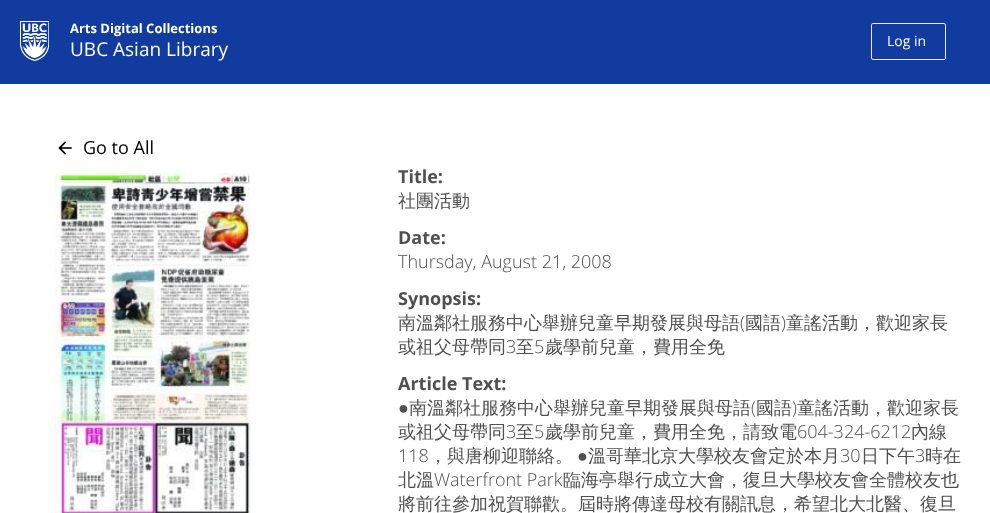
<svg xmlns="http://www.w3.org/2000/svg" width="990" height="513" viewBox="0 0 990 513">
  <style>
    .t1 { font: bold 13px Open Sans; fill: #fff; }
    .t2 { font: 19px Open Sans; fill: #fff; }
    .t3 { font: 14px Open Sans; fill: #fff; }
    .t4 { font: 18px Open Sans; fill: #000; }
    .t5 { font: bold 18px Open Sans; fill: #505050; }
    .t6 { font: 500 18px WenQuanYi Zen Hei; fill: #505050; }
    .t7 { font: 300 18px Open Sans; fill: #505050; }
    .t8 { font: 18px Liberation Sans; fill: #505050; }
  </style>
  <rect width="100%" height="100%" fill="#fff"/>
  <rect x="0" y="0" width="990" height="84" fill="#113b9e"/>
  <image x="20" y="21" width="29" height="40" href="images/1.png"/>
  <text x="70" y="33" class="t1">Arts Digital Collections</text>
  <text x="70" y="56" class="t2">UBC Asian Library</text>
  <rect x="871.5" y="23.5" width="74" height="36" rx="1.5" fill="none" stroke="#e7f3fe"/>
  <text x="887" y="46" class="t3">Log in</text>
  <image x="58" y="141" width="14" height="14" href="images/2.png"/>
  <text x="83" y="154" class="t4">Go to All</text>
  <image x="55" y="173" width="200" height="340" href="images/3.png"/>
  <text x="398" y="183" class="t5">Title:</text>
  <text x="398" y="207" class="t6">社團活動</text>
  <text x="398" y="244" class="t5">Date:</text>
  <text x="398" y="268" class="t7">Thursday, August 21, 2008</text>
  <text x="398" y="305" class="t5">Synopsis:</text>
  <text x="398" y="329" class="t6">南溫鄰社服務中心舉辦兒童早期發展與母語</text>
  <text x="740" y="329" class="t7">(</text>
  <text x="745" y="329" class="t6">國語</text>
  <text x="781" y="329" class="t7">)</text>
  <text x="786" y="329" class="t6">童謠活動，歡迎家長</text>
  <text x="398" y="353" class="t6">或祖父母帶同</text>
  <text x="506" y="353" class="t7">3</text>
  <text x="516" y="353" class="t6">至</text>
  <text x="534" y="353" class="t7">5</text>
  <text x="545" y="353" class="t6">歲學前兒童，費用全免</text>
  <text x="398" y="390" class="t5">Article Text:</text>
  <text x="398" y="414" class="t8">●</text>
  <text x="409" y="414" class="t6">南溫鄰社服務中心舉辦兒童早期發展與母語</text>
  <text x="751" y="414" class="t7">(</text>
  <text x="756" y="414" class="t6">國語</text>
  <text x="792" y="414" class="t7">)</text>
  <text x="797" y="414" class="t6">童謠活動，歡迎家長</text>
  <text x="398" y="438" class="t6">或祖父母帶同</text>
  <text x="506" y="438" class="t7">3</text>
  <text x="516" y="438" class="t6">至</text>
  <text x="534" y="438" class="t7">5</text>
  <text x="545" y="438" class="t6">歲學前兒童，費用全免，請致電</text>
  <text x="797" y="438" class="t7">604-324-6212</text>
  <text x="911" y="438" class="t6">內線</text>
  <text x="398" y="462" class="t7">118</text>
  <text x="429" y="462" class="t6">，與唐柳迎聯絡。</text>
  <text x="577" y="462" class="t8">●</text>
  <text x="588" y="462" class="t6">溫哥華北京大學校友會定於本月</text>
  <text x="840" y="462" class="t7">30</text>
  <text x="861" y="462" class="t6">日下午</text>
  <text x="915" y="462" class="t7">3</text>
  <text x="925" y="462" class="t6">時在</text>
  <text x="398" y="486" class="t6">北溫</text>
  <text x="434" y="486" class="t7">Waterfront Park</text>
  <text x="563" y="486" class="t6">臨海亭舉行成立大會，復旦大學校友會全體校友也</text>
  <text x="398" y="510" class="t6">將前往參加祝賀聯歡。屆時將傳達母校有關訊息，希望北大北醫、復旦</text>
</svg>
